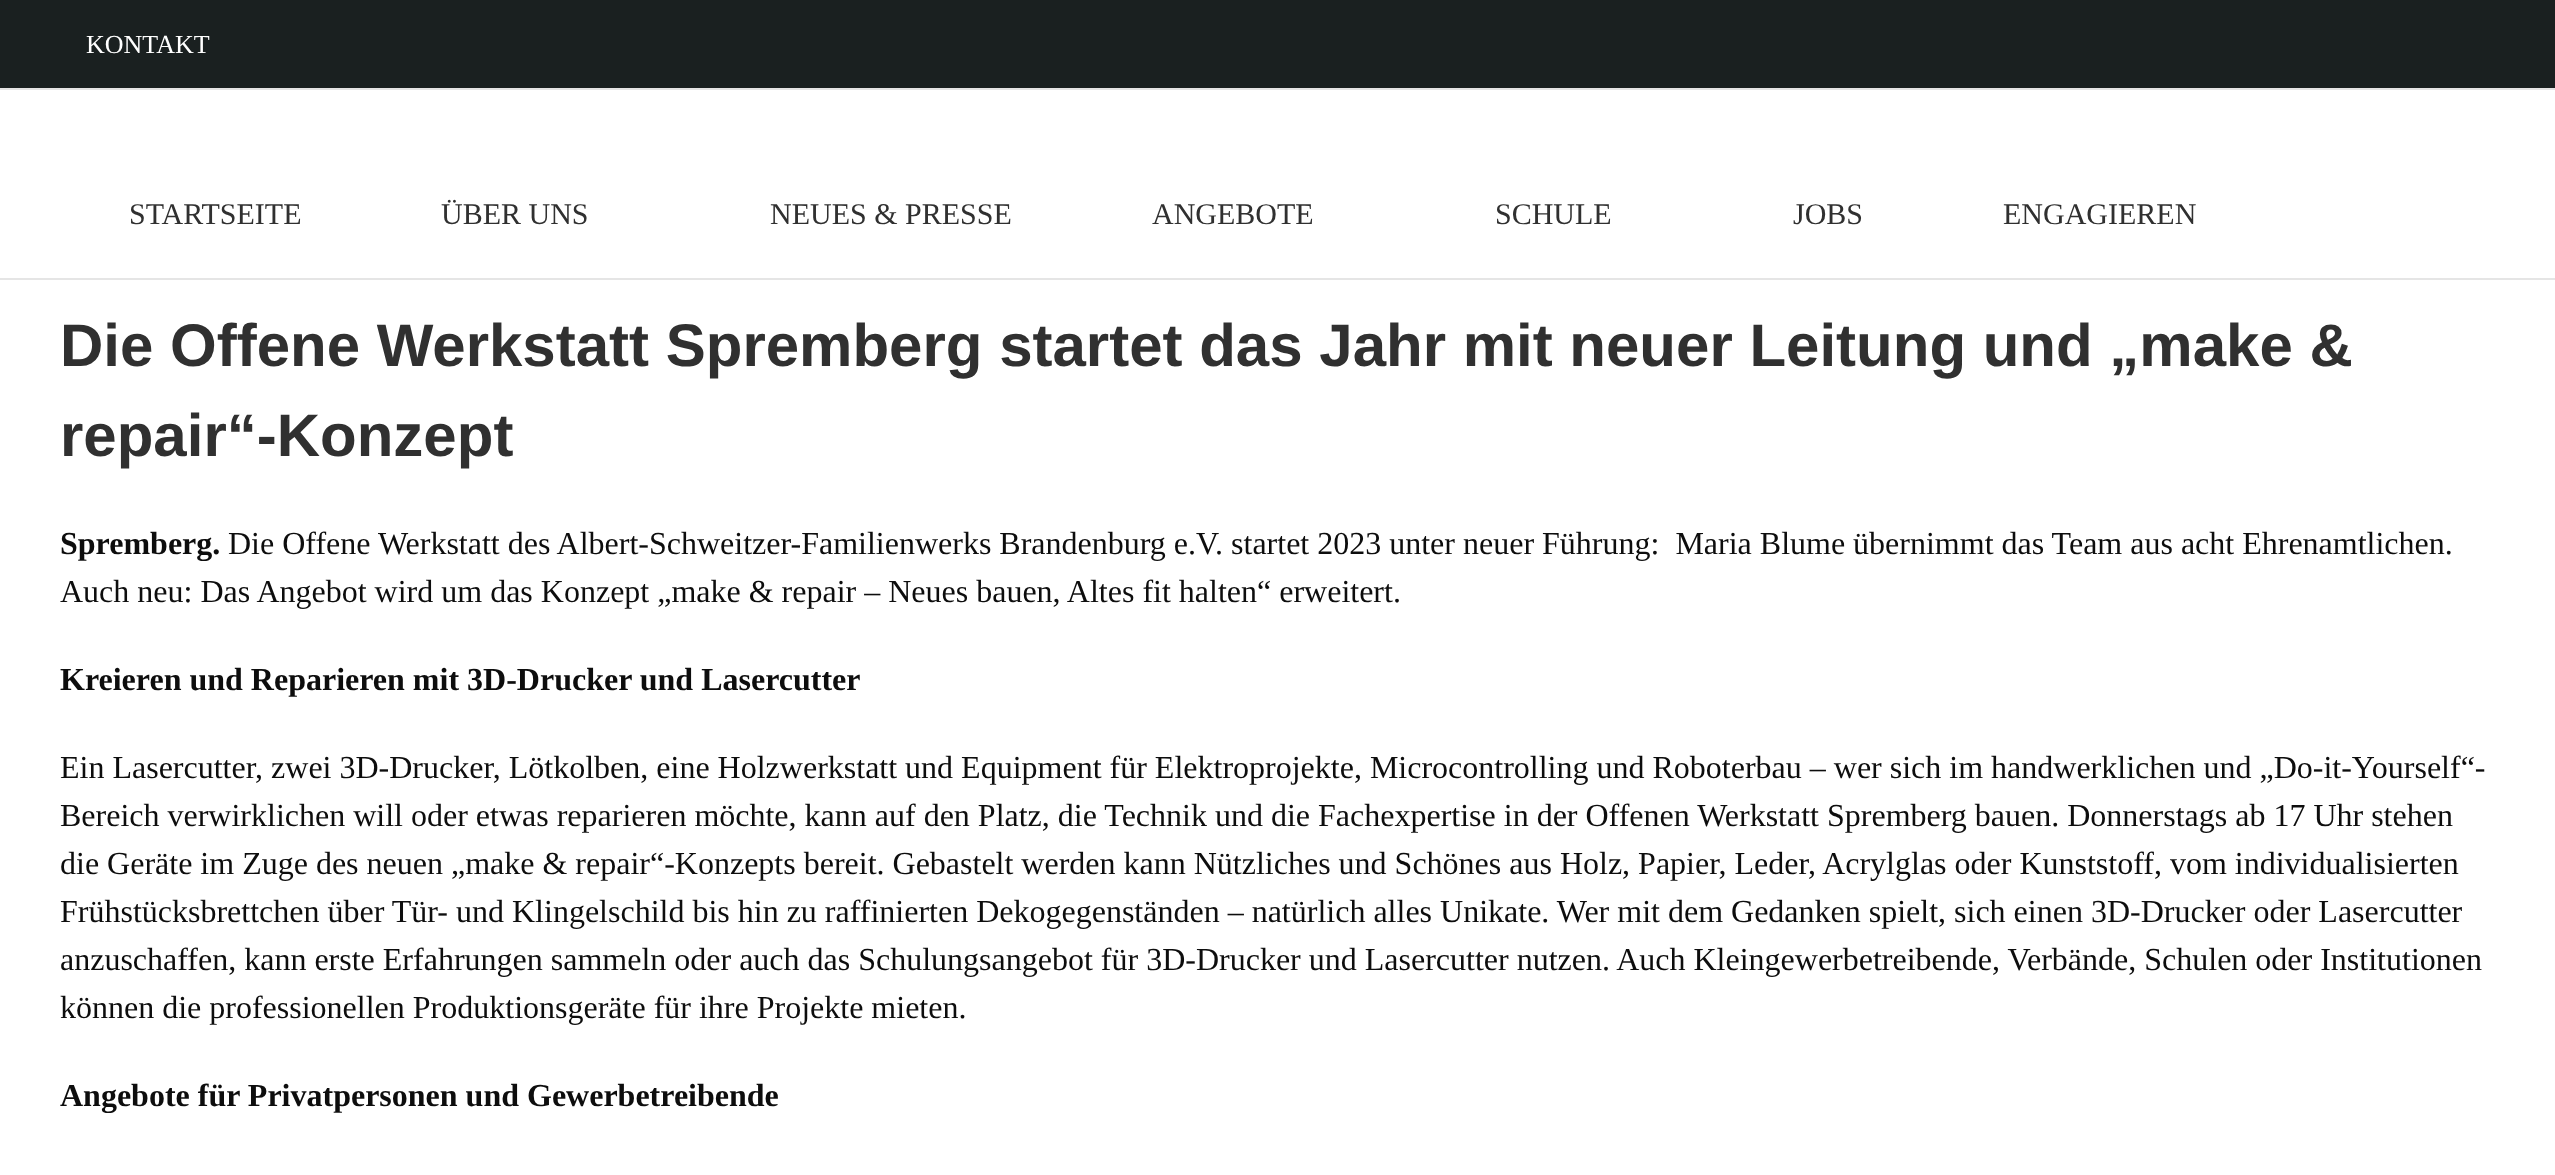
<svg xmlns="http://www.w3.org/2000/svg" width="2555" height="1175" viewBox="0 0 2555 1175">
  <style>
    .t1 { font: 26px Liberation Serif; fill: #fff; }
    .t2 { font: 30px Liberation Serif; fill: #303030; }
    .t3 { font: bold 60px Liberation Sans; fill: #303030; }
    .t4 { font: bold 32px Liberation Serif; fill: #0d0d0d; }
    .t5 { font: 32px Liberation Serif; fill: #0d0d0d; }
  </style>
  <rect width="100%" height="100%" fill="#fff"/>
  <rect x="0" y="0" width="2555" height="88" fill="#1a2020"/>
  <rect x="0" y="88" width="2555" height="2" fill="#e5e5e5"/>
  <text x="86" y="53" class="t1">KONTAKT</text>
  <rect x="0" y="278" width="2555" height="2" fill="#e5e5e5"/>
  <text x="129" y="224" class="t2">STARTSEITE</text>
  <text x="441" y="224" class="t2">ÜBER UNS</text>
  <text x="770" y="224" class="t2">NEUES &amp; PRESSE</text>
  <text x="1152" y="224" class="t2">ANGEBOTE</text>
  <text x="1495" y="224" class="t2">SCHULE</text>
  <text x="1793" y="224" class="t2">JOBS</text>
  <text x="2003" y="224" class="t2">ENGAGIEREN</text>
  <text x="60" y="366" class="t3">Die Offene Werkstatt Spremberg startet das Jahr mit neuer Leitung und „make &amp;</text>
  <text x="60" y="456" class="t3">repair“-Konzept</text>
  <text x="60" y="554" class="t4">Spremberg.</text>
  <text x="228" y="554" class="t5" xml:space="preserve">Die Offene Werkstatt des Albert-Schweitzer-Familienwerks Brandenburg e.V. startet 2023 unter neuer Führung:  Maria Blume übernimmt das Team aus acht Ehrenamtlichen.</text>
  <text x="60" y="602" class="t5">Auch neu: Das Angebot wird um das Konzept „make &amp; repair – Neues bauen, Altes fit halten“ erweitert.</text>
  <text x="60" y="690" class="t4">Kreieren und Reparieren mit 3D-Drucker und Lasercutter</text>
  <text x="60" y="778" class="t5">Ein Lasercutter, zwei 3D-Drucker, Lötkolben, eine Holzwerkstatt und Equipment für Elektroprojekte, Microcontrolling und Roboterbau – wer sich im handwerklichen und „Do-it-Yourself“-</text>
  <text x="60" y="826" class="t5">Bereich verwirklichen will oder etwas reparieren möchte, kann auf den Platz, die Technik und die Fachexpertise in der Offenen Werkstatt Spremberg bauen. Donnerstags ab 17 Uhr stehen</text>
  <text x="60" y="874" class="t5">die Geräte im Zuge des neuen „make &amp; repair“-Konzepts bereit. Gebastelt werden kann Nützliches und Schönes aus Holz, Papier, Leder, Acrylglas oder Kunststoff, vom individualisierten</text>
  <text x="60" y="922" class="t5">Frühstücksbrettchen über Tür- und Klingelschild bis hin zu raffinierten Dekogegenständen – natürlich alles Unikate. Wer mit dem Gedanken spielt, sich einen 3D-Drucker oder Lasercutter</text>
  <text x="60" y="970" class="t5">anzuschaffen, kann erste Erfahrungen sammeln oder auch das Schulungsangebot für 3D-Drucker und Lasercutter nutzen. Auch Kleingewerbetreibende, Verbände, Schulen oder Institutionen</text>
  <text x="60" y="1018" class="t5">können die professionellen Produktionsgeräte für ihre Projekte mieten.</text>
  <text x="60" y="1106" class="t4">Angebote für Privatpersonen und Gewerbetreibende</text>
</svg>
